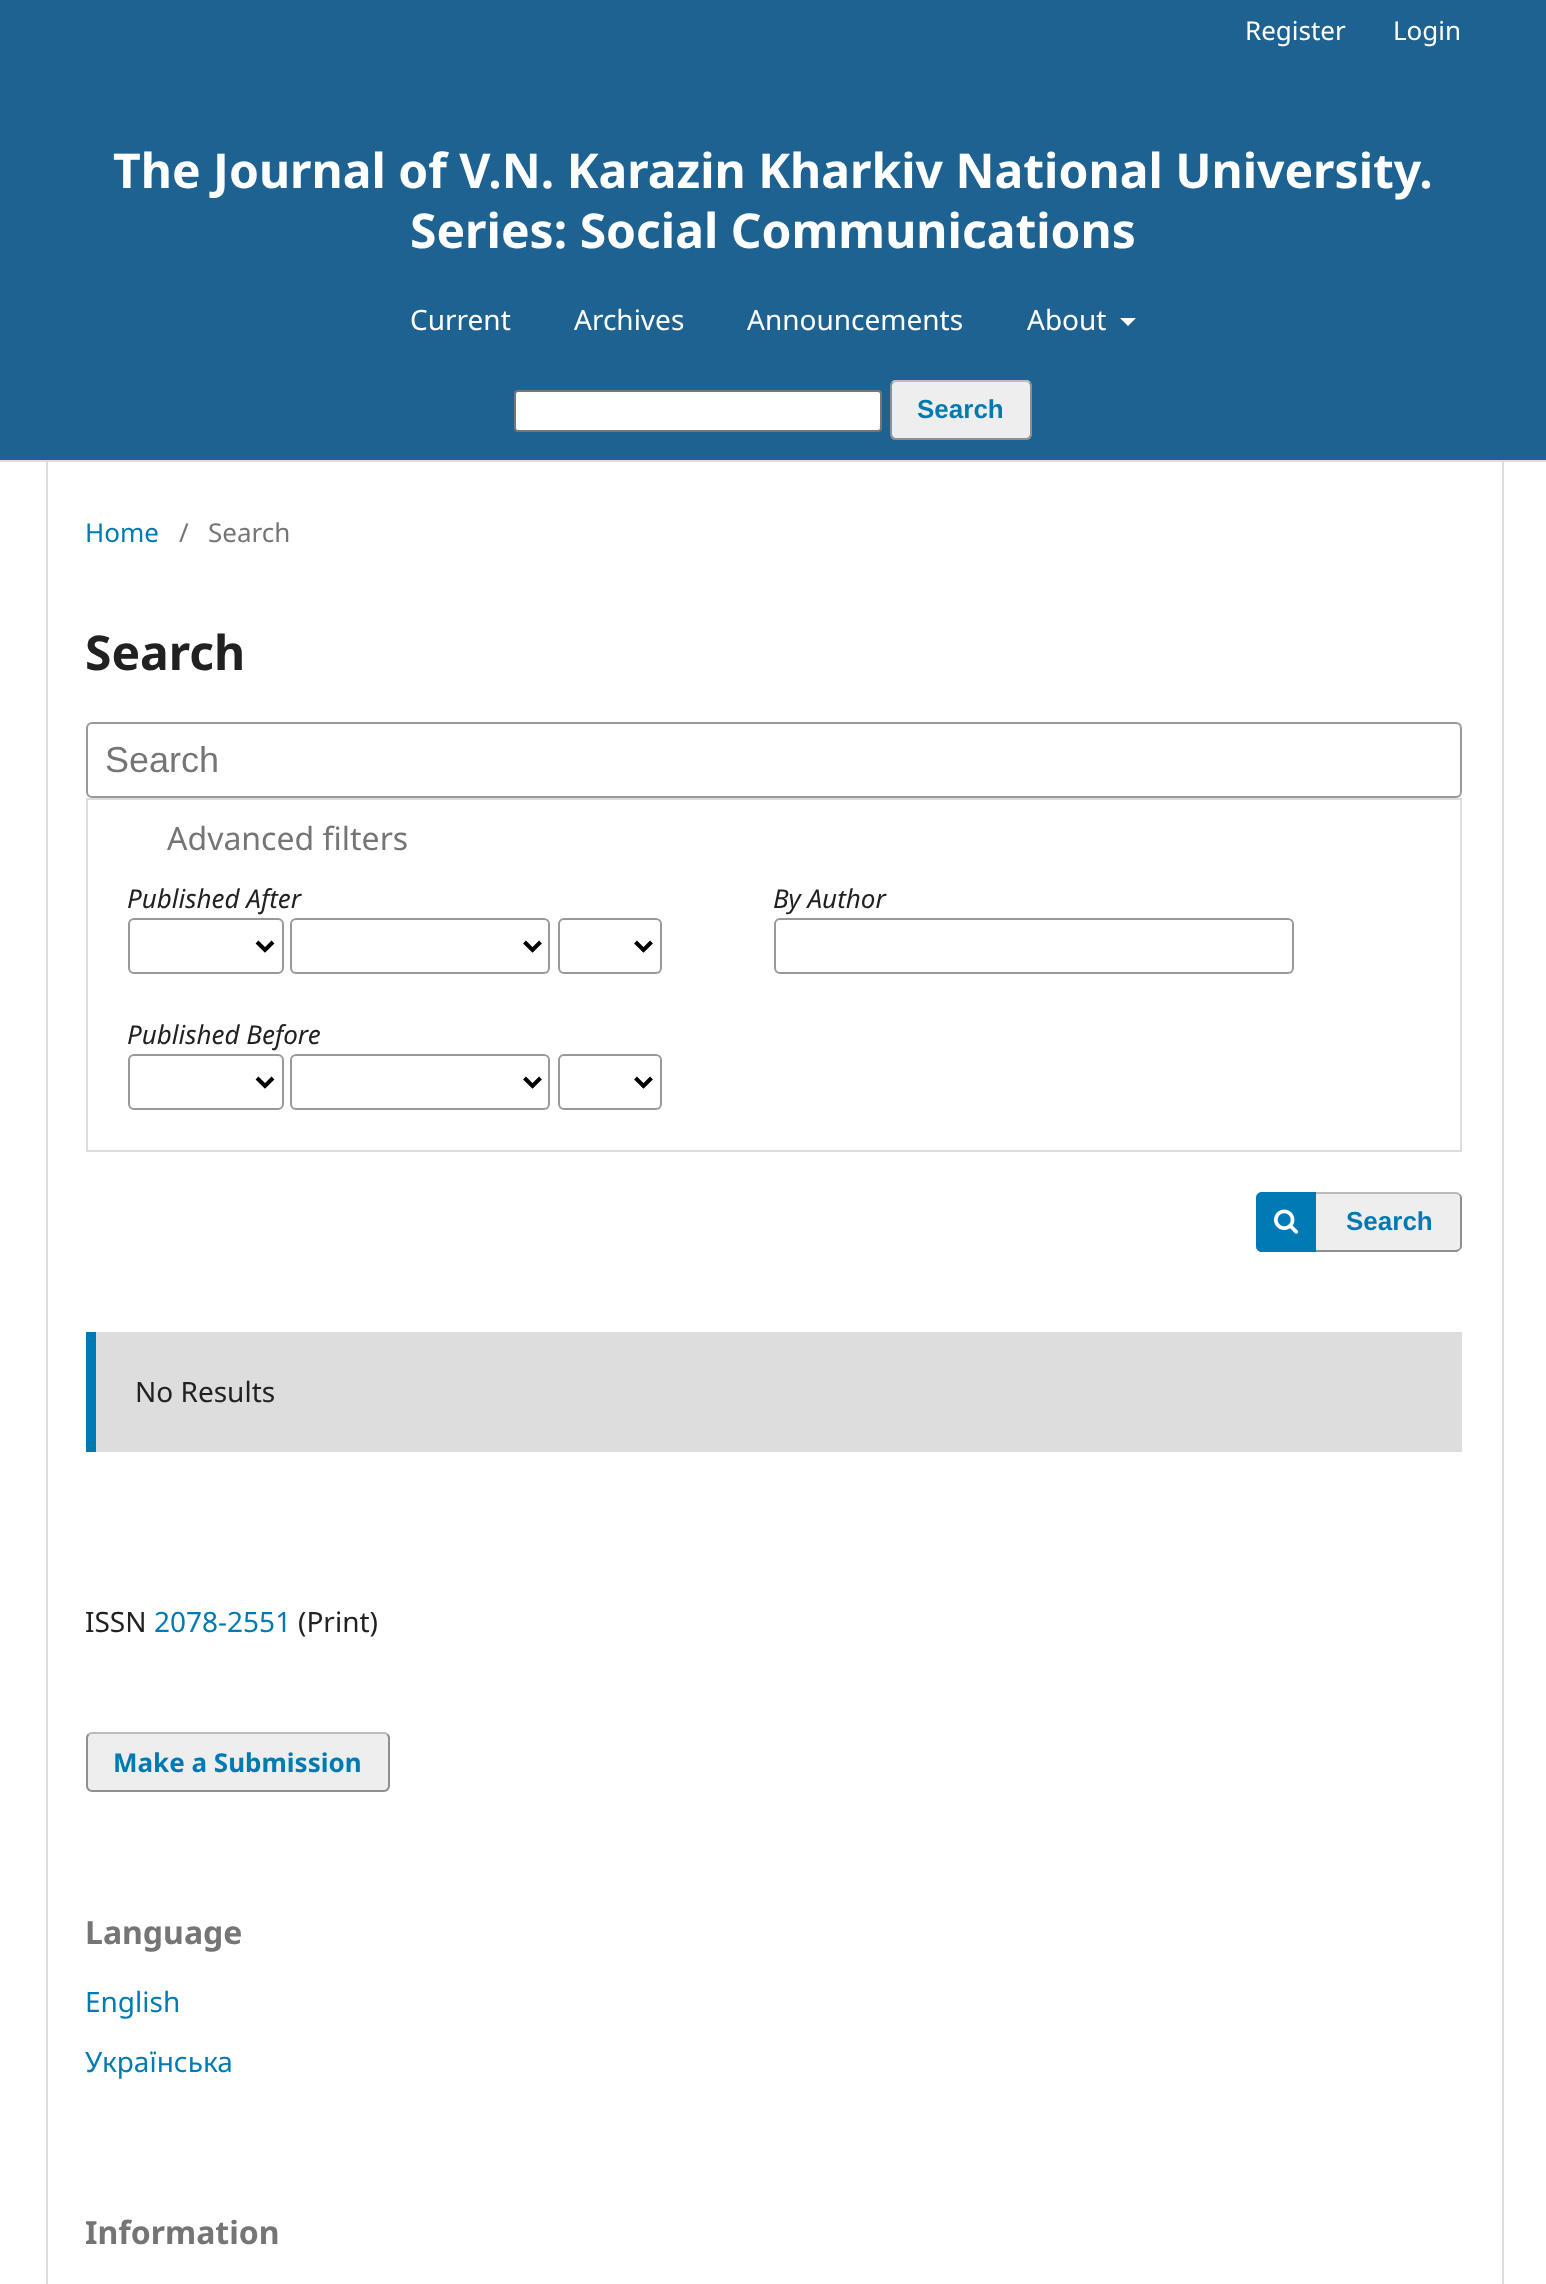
<svg xmlns="http://www.w3.org/2000/svg" width="1546" height="2284" viewBox="0 0 1546 2284">
  <style>
    .t1 { font: 26px Noto Sans; fill: #fff; }
    .t2 { font: bold 48px Noto Sans; fill: #fff; }
    .t3 { font: 28px Noto Sans; fill: #fff; }
    .t4 { font: bold 26px Liberation Sans; fill: #007ab2; }
    .t5 { font: 26px Noto Sans; fill: #007ab2; }
    .t6 { font: 26px Noto Sans; fill: #757575; }
    .t7 { font: bold 48px Noto Sans; fill: #212121; }
    .t8 { font: 36px Liberation Sans; fill: #757575; }
    .t9 { font: 32px Noto Sans; fill: #757575; }
    .t10 { font: italic 26px Noto Sans; fill: #212121; }
    .t11 { font: 28px Noto Sans; fill: #212121; }
    .t12 { font: 28px Noto Sans; fill: #007ab2; }
    .t13 { font: bold 26px Noto Sans; fill: #007ab2; }
    .t14 { font: bold 32px Noto Sans; fill: #757575; }
  </style>
  <rect width="100%" height="100%" fill="#fff"/>
  <rect x="0" y="0" width="1546" height="460" fill="#1e6292"/>
  <rect x="0" y="460" width="1546" height="2" fill="#ddd"/>
  <text x="1245" y="40" class="t1">Register</text>
  <text x="1393" y="40" class="t1">Login</text>
  <text x="113" y="188" class="t2">The Journal of V.N. Karazin Kharkiv National University.</text>
  <text x="410" y="248" class="t2">Series: Social Communications</text>
  <text x="410" y="330" class="t3">Current</text>
  <text x="574" y="330" class="t3">Archives</text>
  <text x="747" y="330" class="t3">Announcements</text>
  <text x="1027" y="330" class="t3">About</text>
  <path d="M1120 318H1136L1128 326Z" fill="#fff"/>
  <rect x="515" y="391" width="366" height="40" rx="3" fill="#fff" stroke="#767676" stroke-width="2"/>
  <rect x="890" y="380" width="142" height="60" rx="6" fill="#eee"/>
  <path d="M892.5 382.5C893.5 381.5 894.5 381 896 381H1026C1027.5 381 1028.5 381.5 1029.5 382.5" fill="none" stroke="#bbb" stroke-width="2"/>
  <path d="M1029.5 382.5C1030.5 383.5 1031 384.5 1031 386V434C1031 435.5 1030.5 436.5 1029.5 437.5C1028.5 438.5 1027.5 439 1026 439H896C894.5 439 893.5 438.5 892.5 437.5C891.5 436.5 891 435.5 891 434V386C891 384.5 891.5 383.5 892.5 382.5" fill="none" stroke="#00000066" stroke-width="2"/>
  <text x="917" y="418" class="t4">Search</text>
  <rect x="46" y="462" width="2" height="1822" fill="#ddd"/>
  <text x="85" y="542" class="t5">Home</text>
  <text x="179" y="542" class="t6">/</text>
  <text x="208" y="542" class="t6">Search</text>
  <text x="85" y="670" class="t7">Search</text>
  <rect x="87" y="723" width="1374" height="74" rx="5" fill="none" stroke="#999" stroke-width="2"/>
  <text x="105" y="772" class="t8">Search</text>
  <rect x="87" y="799" width="1374" height="352" fill="none" stroke="#ddd" stroke-width="2"/>
  <text x="167" y="850" class="t9">Advanced filters</text>
  <text x="127" y="908" class="t10">Published After</text>
  <rect x="129" y="919" width="154" height="54" rx="5" fill="none" stroke="#999" stroke-width="2"/>
  <path d="M257 942L265 950L273 942" fill="none" stroke="#000" stroke-width="4"/>
  <rect x="291" y="919" width="258" height="54" rx="5" fill="none" stroke="#999" stroke-width="2"/>
  <path d="M524.5 942L532.5 950L540.5 942" fill="none" stroke="#000" stroke-width="4"/>
  <rect x="559" y="919" width="102" height="54" rx="5" fill="none" stroke="#999" stroke-width="2"/>
  <path d="M635.5 942L643.5 950L651.5 942" fill="none" stroke="#000" stroke-width="4"/>
  <text x="127" y="1044" class="t10">Published Before</text>
  <rect x="129" y="1055" width="154" height="54" rx="5" fill="none" stroke="#999" stroke-width="2"/>
  <path d="M257 1078L265 1086L273 1078" fill="none" stroke="#000" stroke-width="4"/>
  <rect x="291" y="1055" width="258" height="54" rx="5" fill="none" stroke="#999" stroke-width="2"/>
  <path d="M524.5 1078L532.5 1086L540.5 1078" fill="none" stroke="#000" stroke-width="4"/>
  <rect x="559" y="1055" width="102" height="54" rx="5" fill="none" stroke="#999" stroke-width="2"/>
  <path d="M635.5 1078L643.5 1086L651.5 1078" fill="none" stroke="#000" stroke-width="4"/>
  <text x="773" y="908" class="t10">By Author</text>
  <rect x="775" y="919" width="518" height="54" rx="5" fill="none" stroke="#999" stroke-width="2"/>
  <rect x="1256" y="1192" width="206" height="60" rx="6" fill="#eee"/>
  <path d="M1262 1192C1259 1192 1256 1195 1256 1198C1256 1191 1280 1194 1294 1194H1456L1459 1195L1460 1194C1459 1193 1458 1192 1456 1192Z" fill="#bbb"/>
  <path d="M1459 1249C1460 1248 1460 1247 1460 1246V1198C1460 1197 1460 1196 1459 1195L1460 1194C1461 1195 1462 1196 1462 1198V1246C1462 1248 1461 1249 1460 1250Z" fill="#00000066"/>
  <path d="M1262 1252H1457L1460 1250L1459 1249L1456 1250H1294C1280 1250 1256 1253 1256 1246C1256 1249 1259 1252 1262 1252Z" fill="#00000066"/>
  <path d="M1262 1192H1316V1252H1262C1258.5 1252 1256 1249.5 1256 1246V1198C1256 1194.5 1258.5 1192 1262 1192Z" fill="#007ab2"/>
  <image x="1274" y="1209" width="25" height="25" href="images/1.png"/>
  <text x="1346" y="1230" class="t4">Search</text>
  <rect x="96" y="1332" width="1366" height="120" fill="#ddd"/>
  <rect x="86" y="1332" width="10" height="120" fill="#007ab2"/>
  <text x="135" y="1402" class="t11">No Results</text>
  <rect x="1502" y="462" width="2" height="1822" fill="#ddd"/>
  <text x="85" y="1632" class="t11">ISSN</text>
  <text x="154" y="1632" class="t12">2078-2551</text>
  <text x="298" y="1632" class="t11">(Print)</text>
  <rect x="86" y="1732" width="304" height="60" rx="6" fill="#eee"/>
  <path d="M88.5 1734.5C89.5 1733.5 90.5 1733 92 1733H384C385.5 1733 386.5 1733.5 387.5 1734.5" fill="none" stroke="#bbb" stroke-width="2"/>
  <path d="M387.5 1734.5C388.5 1735.5 389 1736.5 389 1738V1786C389 1787.5 388.5 1788.5 387.5 1789.5C386.5 1790.5 385.5 1791 384 1791H92C90.5 1791 89.5 1790.5 88.5 1789.5C87.5 1788.5 87 1787.5 87 1786V1738C87 1736.5 87.5 1735.5 88.5 1734.5" fill="none" stroke="#00000066" stroke-width="2"/>
  <text x="113" y="1772" class="t13">Make a Submission</text>
  <text x="85" y="1944" class="t14">Language</text>
  <text x="85" y="2012" class="t12">English</text>
  <text x="85" y="2072" class="t12">Українська</text>
  <text x="85" y="2244" class="t14">Information</text>
</svg>
